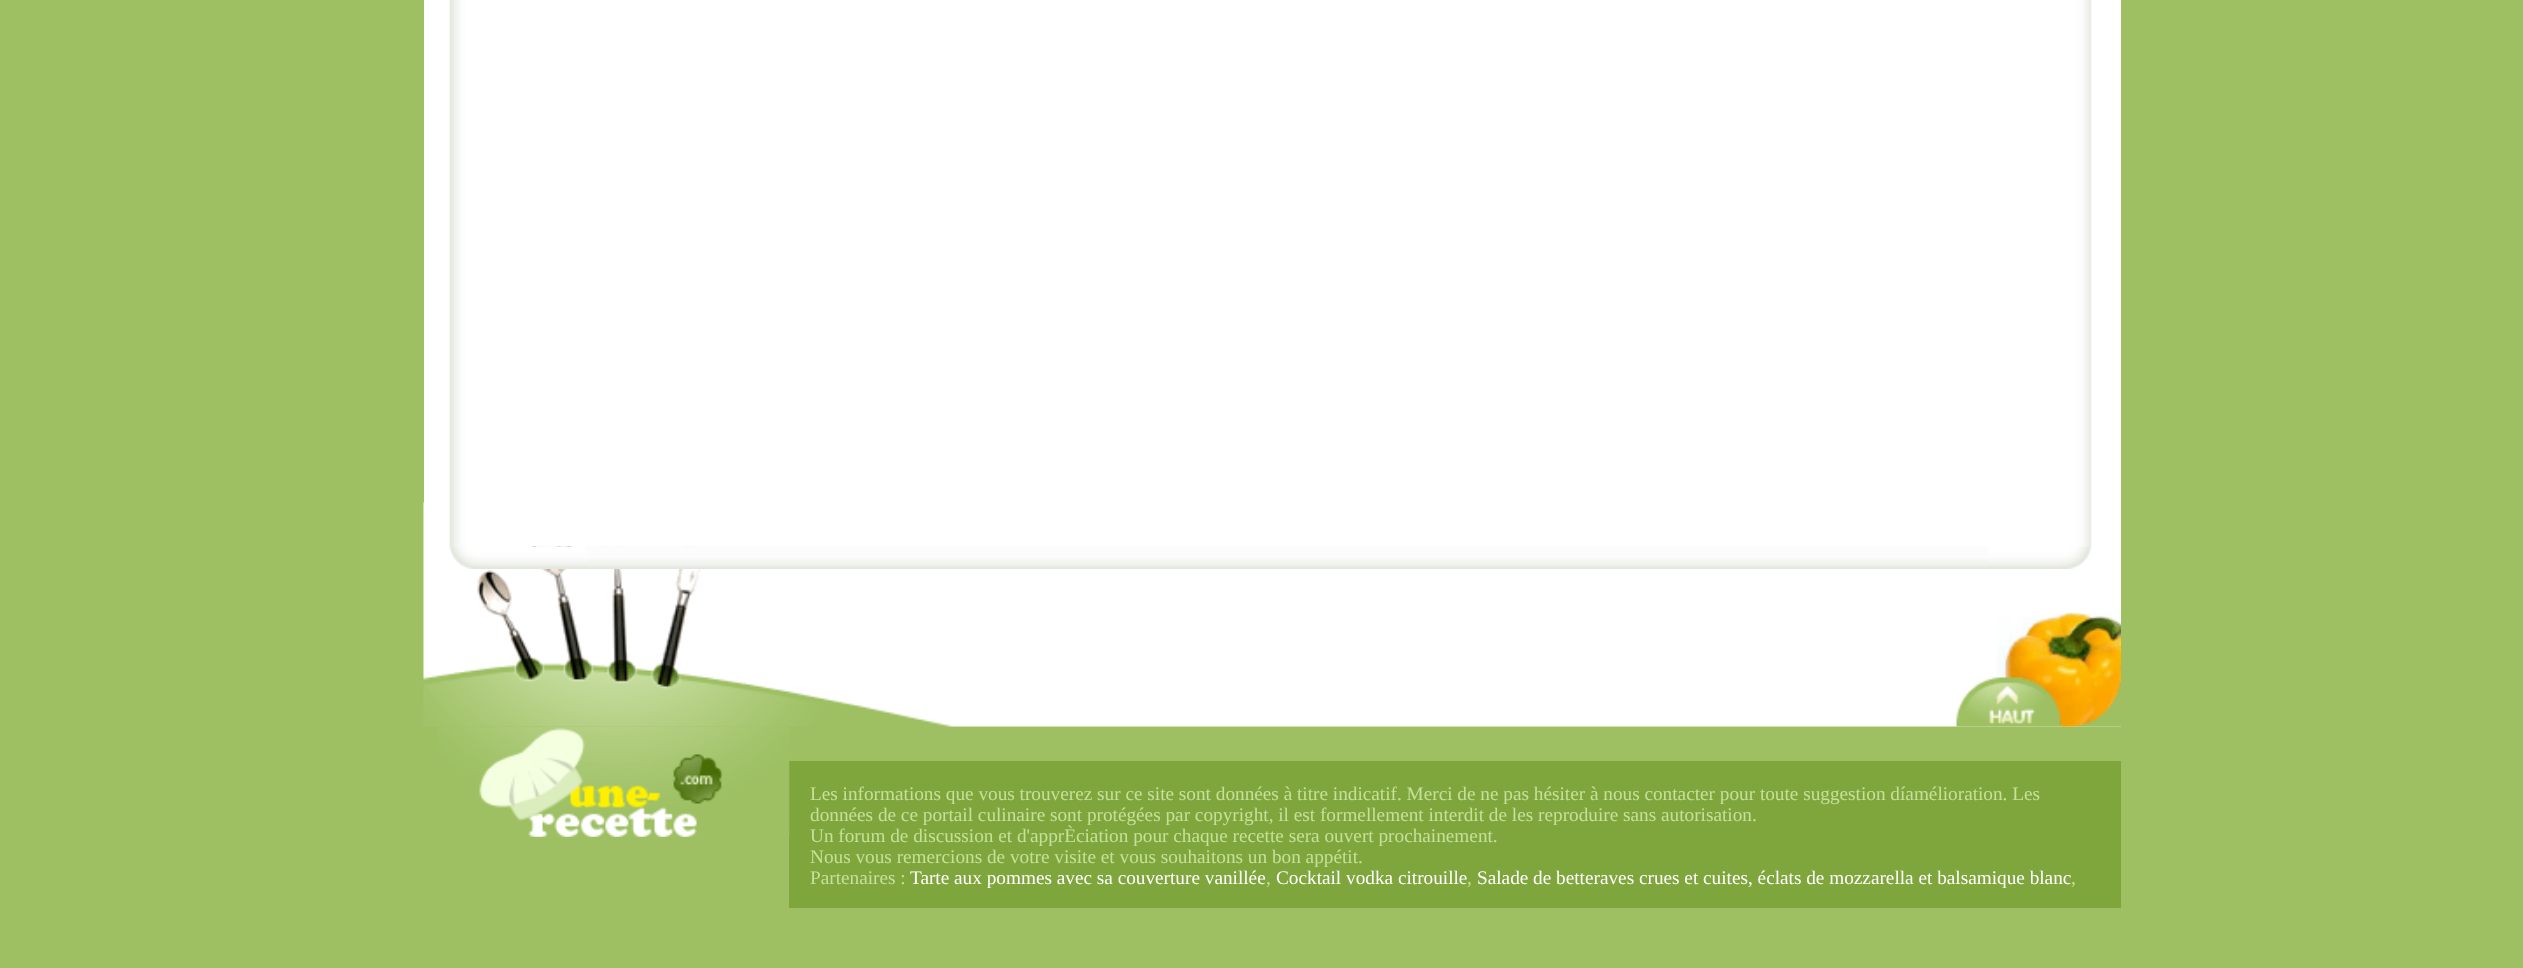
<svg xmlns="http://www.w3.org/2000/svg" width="2523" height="968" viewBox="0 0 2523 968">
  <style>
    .t1 { font: 19.25px Liberation Serif; fill: #c6e099; }
    .t2 { font: 19.25px Liberation Serif; fill: #fff; }
  </style>
  <rect width="100%" height="100%" fill="#9ec063"/>
  <rect x="424" y="0" width="1697" height="503" fill="#fff"/>
  <image x="423" y="502" width="1698" height="225" href="images/1.png"/>
  <image x="449" y="0" width="1643" height="547" href="images/2.png"/>
  <image x="449" y="546" width="1643" height="23" href="images/3.png"/>
  <image x="1956" y="612" width="165" height="115" href="images/4.png"/>
  <rect x="789" y="761" width="1332" height="147" fill="#7fa63d"/>
  <image x="437" y="726" width="353" height="111" href="images/5.png"/>
  <text x="810" y="800" class="t1">Les informations que vous trouverez sur ce site sont données à titre indicatif. Merci de ne pas hésiter à nous contacter pour toute suggestion díamélioration. Les</text>
  <text x="810" y="821" class="t1">données de ce portail culinaire sont protégées par copyright, il est formellement interdit de les reproduire sans autorisation.</text>
  <text x="810" y="842" class="t1">Un forum de discussion et d'apprÈciation pour chaque recette sera ouvert prochainement.</text>
  <text x="810" y="863" class="t1">Nous vous remercions de votre visite et vous souhaitons un bon appétit.</text>
  <text x="810" y="884" class="t1">Partenaires :</text>
  <text x="910" y="884" class="t2">Tarte aux pommes avec sa couverture vanillée</text>
  <text x="1266" y="884" class="t1">,</text>
  <text x="1276" y="884" class="t2">Cocktail vodka citrouille</text>
  <text x="1467" y="884" class="t1">,</text>
  <text x="1477" y="884" class="t2">Salade de betteraves crues et cuites, éclats de mozzarella et balsamique blanc</text>
  <text x="2071" y="884" class="t1">,</text>
</svg>
